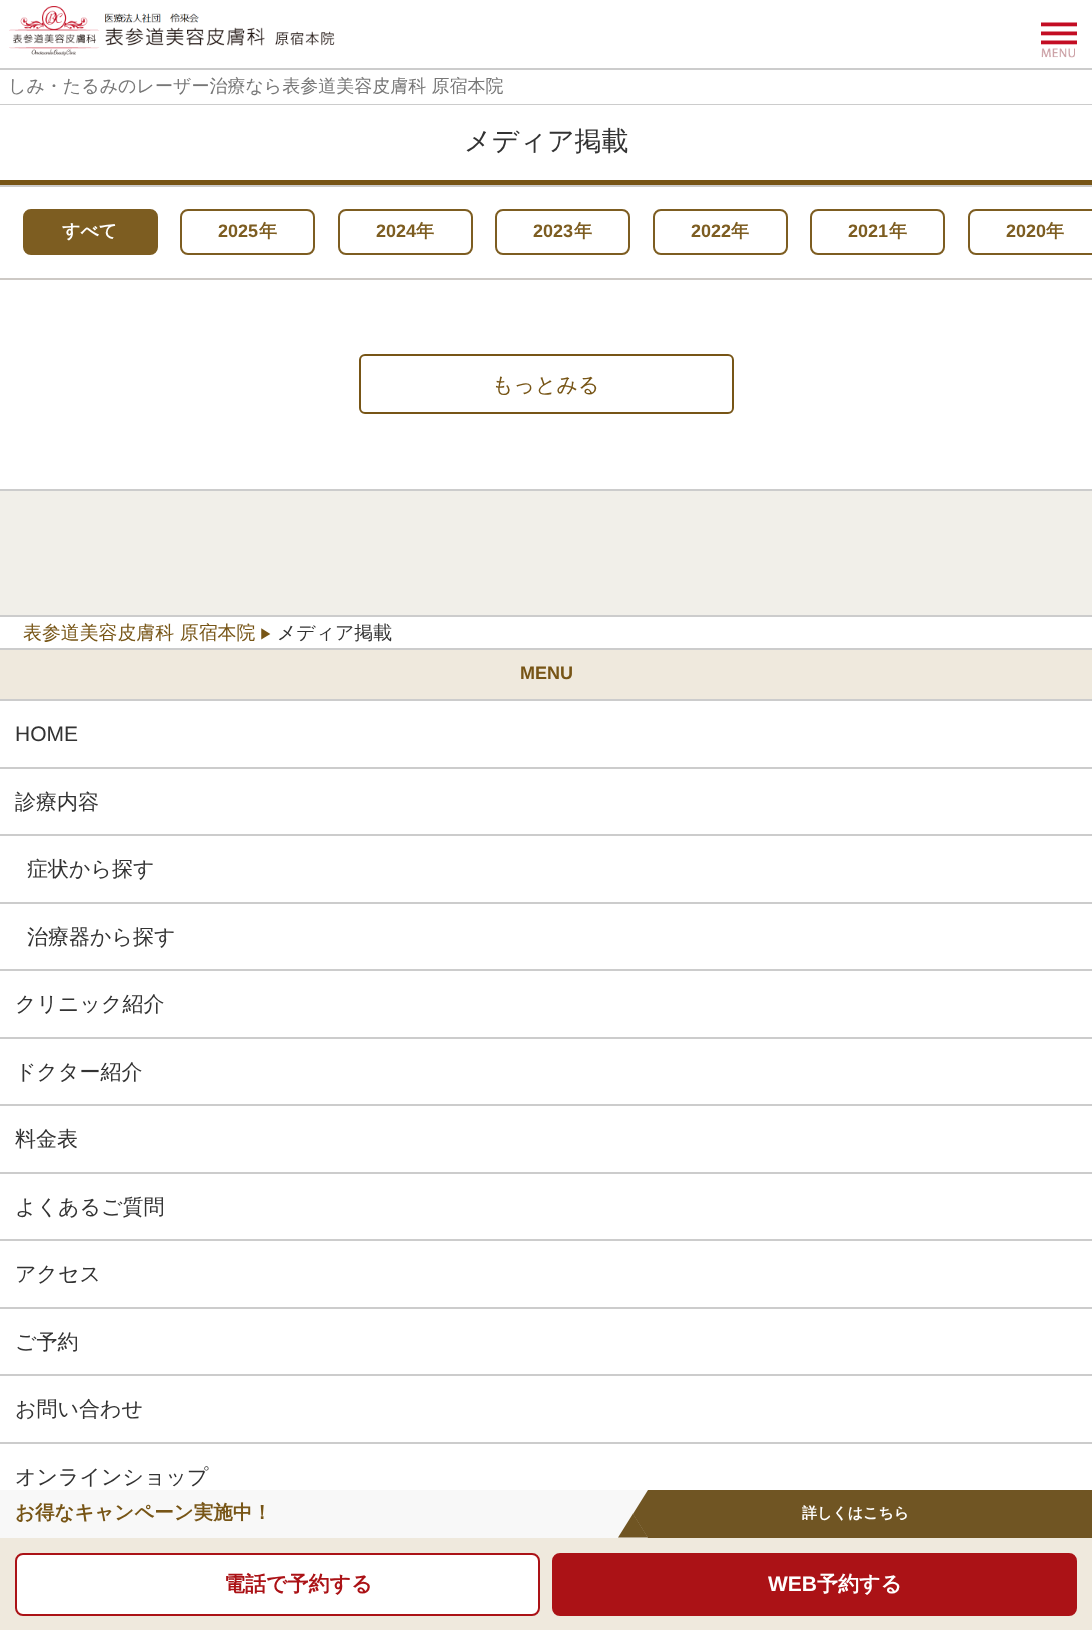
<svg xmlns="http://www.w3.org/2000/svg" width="1092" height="1630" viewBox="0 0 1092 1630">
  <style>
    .t1 { font: 500 18px WenQuanYi Zen Hei; fill: #777; }
    .t2 { font: 500 27px WenQuanYi Zen Hei; fill: #333; }
    .t3 { font: bold 18px WenQuanYi Zen Hei; fill: #fff; }
    .t4 { font: bold 18px Liberation Sans; fill: #7d5d21; }
    .t5 { font: bold 18px WenQuanYi Zen Hei; fill: #7d5d21; }
    .t6 { font: 500 21px WenQuanYi Zen Hei; fill: #775516; }
    .t7 { font: 500 18.9px WenQuanYi Zen Hei; fill: #775516; }
    .t8 { font: 500 14px WenQuanYi Zen Hei; fill: #775516; }
    .t9 { font: 500 18.9px WenQuanYi Zen Hei; fill: #333; }
    .t10 { font: bold 18px Liberation Sans; fill: #775516; }
    .t11 { font: 21px Liberation Sans; fill: #333; }
    .t12 { font: 500 21px WenQuanYi Zen Hei; fill: #333; }
    .t13 { font: bold 19.5px WenQuanYi Zen Hei; fill: #775516; }
    .t14 { font: bold 15px WenQuanYi Zen Hei; fill: #fff; }
    .t15 { font: bold 21px WenQuanYi Zen Hei; fill: #ab1216; }
    .t16 { font: bold 21px Liberation Sans; fill: #fff; }
    .t17 { font: bold 21px WenQuanYi Zen Hei; fill: #fff; }
  </style>
  <rect width="100%" height="100%" fill="#fff"/>
  <image x="9" y="6" width="326" height="50" href="images/1.png"/>
  <image x="1041" y="22" width="36" height="36" href="images/2.png"/>
  <rect x="0" y="68" width="1092" height="2" fill="#ccc"/>
  <text x="8" y="92" class="t1">しみ・たるみのレーザー治療なら表参道美容皮膚科 原宿本院</text>
  <rect x="0" y="104" width="1092" height="1" fill="#ccc"/>
  <rect x="0" y="180" width="1092" height="5" fill="#775516"/>
  <text x="464" y="150" class="t2">メディア掲載</text>
  <rect x="0" y="185" width="1092" height="2" fill="#ccc"/>
  <rect x="0" y="278" width="1092" height="2" fill="#cdc9c5"/>
  <rect x="24" y="210" width="133" height="44" rx="7" fill="#7d5d21" stroke="#7d5d21" stroke-width="2"/>
  <text x="62" y="237" class="t3">すべて</text>
  <rect x="181" y="210" width="133" height="44" rx="7" fill="none" stroke="#7d5d21" stroke-width="2"/>
  <text x="218" y="237" class="t4">2025</text>
  <text x="259" y="237" class="t5">年</text>
  <rect x="339" y="210" width="133" height="44" rx="7" fill="none" stroke="#7d5d21" stroke-width="2"/>
  <text x="376" y="237" class="t4">2024</text>
  <text x="416" y="237" class="t5">年</text>
  <rect x="496" y="210" width="133" height="44" rx="7" fill="none" stroke="#7d5d21" stroke-width="2"/>
  <text x="533" y="237" class="t4">2023</text>
  <text x="574" y="237" class="t5">年</text>
  <rect x="654" y="210" width="133" height="44" rx="7" fill="none" stroke="#7d5d21" stroke-width="2"/>
  <text x="691" y="237" class="t4">2022</text>
  <text x="731" y="237" class="t5">年</text>
  <rect x="811" y="210" width="133" height="44" rx="7" fill="none" stroke="#7d5d21" stroke-width="2"/>
  <text x="848" y="237" class="t4">2021</text>
  <text x="889" y="237" class="t5">年</text>
  <rect x="969" y="210" width="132" height="44" rx="7" fill="none" stroke="#7d5d21" stroke-width="2"/>
  <text x="1006" y="237" class="t4">2020</text>
  <text x="1046" y="237" class="t5">年</text>
  <rect x="360" y="355" width="373" height="58" rx="5" fill="none" stroke="#775516" stroke-width="2"/>
  <text x="492" y="392" class="t6">もっとみる</text>
  <rect x="0" y="489" width="1092" height="2" fill="#ccc"/>
  <rect x="0" y="491" width="1092" height="124" fill="#f1efe9"/>
  <rect x="0" y="615" width="1092" height="2" fill="#ccc"/>
  <text x="23" y="639" class="t7">表参道美容皮膚科 原宿本院</text>
  <text x="259" y="639" class="t8">▶</text>
  <text x="277" y="639" class="t9">メディア掲載</text>
  <rect x="0" y="648" width="1092" height="2" fill="#ccc"/>
  <rect x="0" y="650" width="1092" height="49" fill="#efe9dd"/>
  <text x="520" y="679" class="t10">MENU</text>
  <rect x="0" y="699" width="1092" height="2" fill="#ccc"/>
  <rect x="0" y="767" width="1092" height="2" fill="#ccc"/>
  <text x="15" y="741" class="t11">HOME</text>
  <rect x="0" y="834" width="1092" height="2" fill="#ccc"/>
  <text x="15" y="809" class="t12">診療内容</text>
  <rect x="0" y="902" width="1092" height="2" fill="#ccc"/>
  <text x="27" y="876" class="t12">症状から探す</text>
  <rect x="0" y="969" width="1092" height="2" fill="#ccc"/>
  <text x="27" y="944" class="t12">治療器から探す</text>
  <rect x="0" y="1037" width="1092" height="2" fill="#ccc"/>
  <text x="15" y="1011" class="t12">クリニック紹介</text>
  <rect x="0" y="1104" width="1092" height="2" fill="#ccc"/>
  <text x="15" y="1079" class="t12">ドクター紹介</text>
  <rect x="0" y="1172" width="1092" height="2" fill="#ccc"/>
  <text x="15" y="1146" class="t12">料金表</text>
  <rect x="0" y="1239" width="1092" height="2" fill="#ccc"/>
  <text x="15" y="1214" class="t12">よくあるご質問</text>
  <rect x="0" y="1307" width="1092" height="2" fill="#ccc"/>
  <text x="15" y="1281" class="t12">アクセス</text>
  <rect x="0" y="1374" width="1092" height="2" fill="#ccc"/>
  <text x="15" y="1349" class="t12">ご予約</text>
  <rect x="0" y="1442" width="1092" height="2" fill="#ccc"/>
  <text x="15" y="1416" class="t12">お問い合わせ</text>
  <text x="15" y="1484" class="t12">オンラインショップ</text>
  <rect x="0" y="1538" width="1092" height="92" fill="#efe9dd"/>
  <rect x="0" y="1490" width="648" height="48" fill="#f8f8f8"/>
  <text x="15" y="1519" class="t13">お得なキャンペーン実施中！</text>
  <rect x="648" y="1490" width="444" height="48" fill="#705523"/>
  <path d="M648 1490V1538L633 1514Z" fill="#705523"/>
  <path d="M648 1537.5H618L633 1513.5Z" fill="#705523"/>
  <text x="802" y="1518" class="t14">詳しくはこちら</text>
  <rect x="16" y="1554" width="523" height="61" rx="7" fill="#fff" stroke="#ab1216" stroke-width="2"/>
  <text x="224" y="1591" class="t15">電話で予約する</text>
  <rect x="553" y="1554" width="523" height="61" rx="7" fill="#ab1216" stroke="#ab1216" stroke-width="2"/>
  <text x="768" y="1591" class="t16">WEB</text>
  <text x="817" y="1591" class="t17">予約する</text>
</svg>
